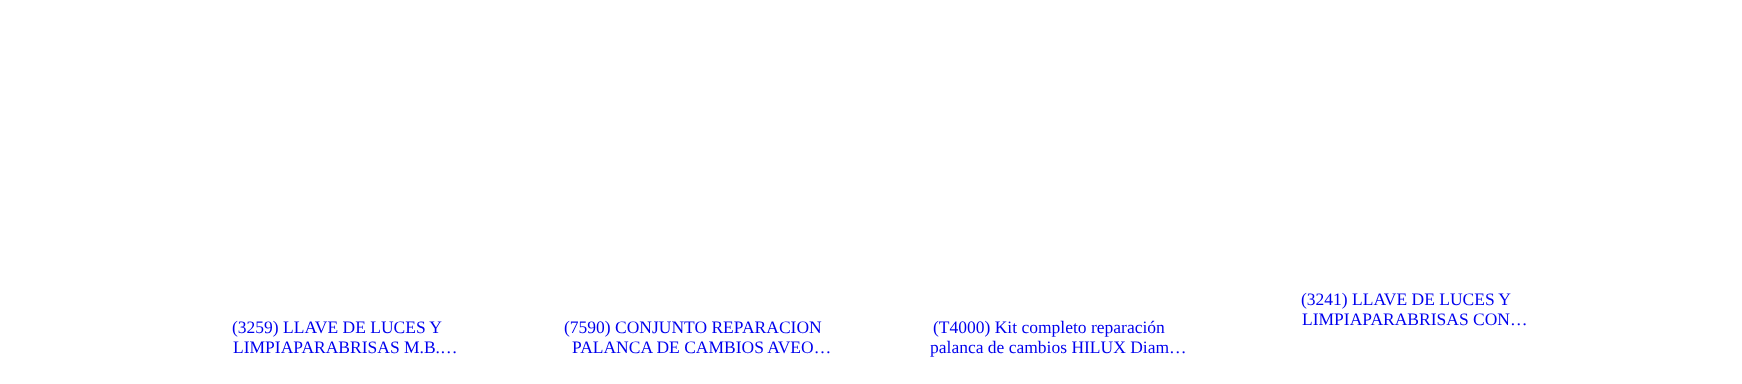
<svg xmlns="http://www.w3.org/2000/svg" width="1742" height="384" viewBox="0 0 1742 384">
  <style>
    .t1 { font: 17.5px Liberation Serif; fill: #00e; }
  </style>
  <rect width="100%" height="100%" fill="#fff"/>
  <text x="1301" y="305" class="t1">(3241) LLAVE DE LUCES Y</text>
  <text x="1302" y="325" class="t1">LIMPIAPARABRISAS CON…</text>
  <text x="232" y="333" class="t1">(3259) LLAVE DE LUCES Y</text>
  <text x="233" y="353" class="t1">LIMPIAPARABRISAS M.B.…</text>
  <text x="564" y="333" class="t1">(7590) CONJUNTO REPARACION</text>
  <text x="572" y="353" class="t1">PALANCA DE CAMBIOS AVEO…</text>
  <text x="933" y="333" class="t1">(T4000) Kit completo reparación</text>
  <text x="930" y="353" class="t1">palanca de cambios HILUX Diam…</text>
</svg>
